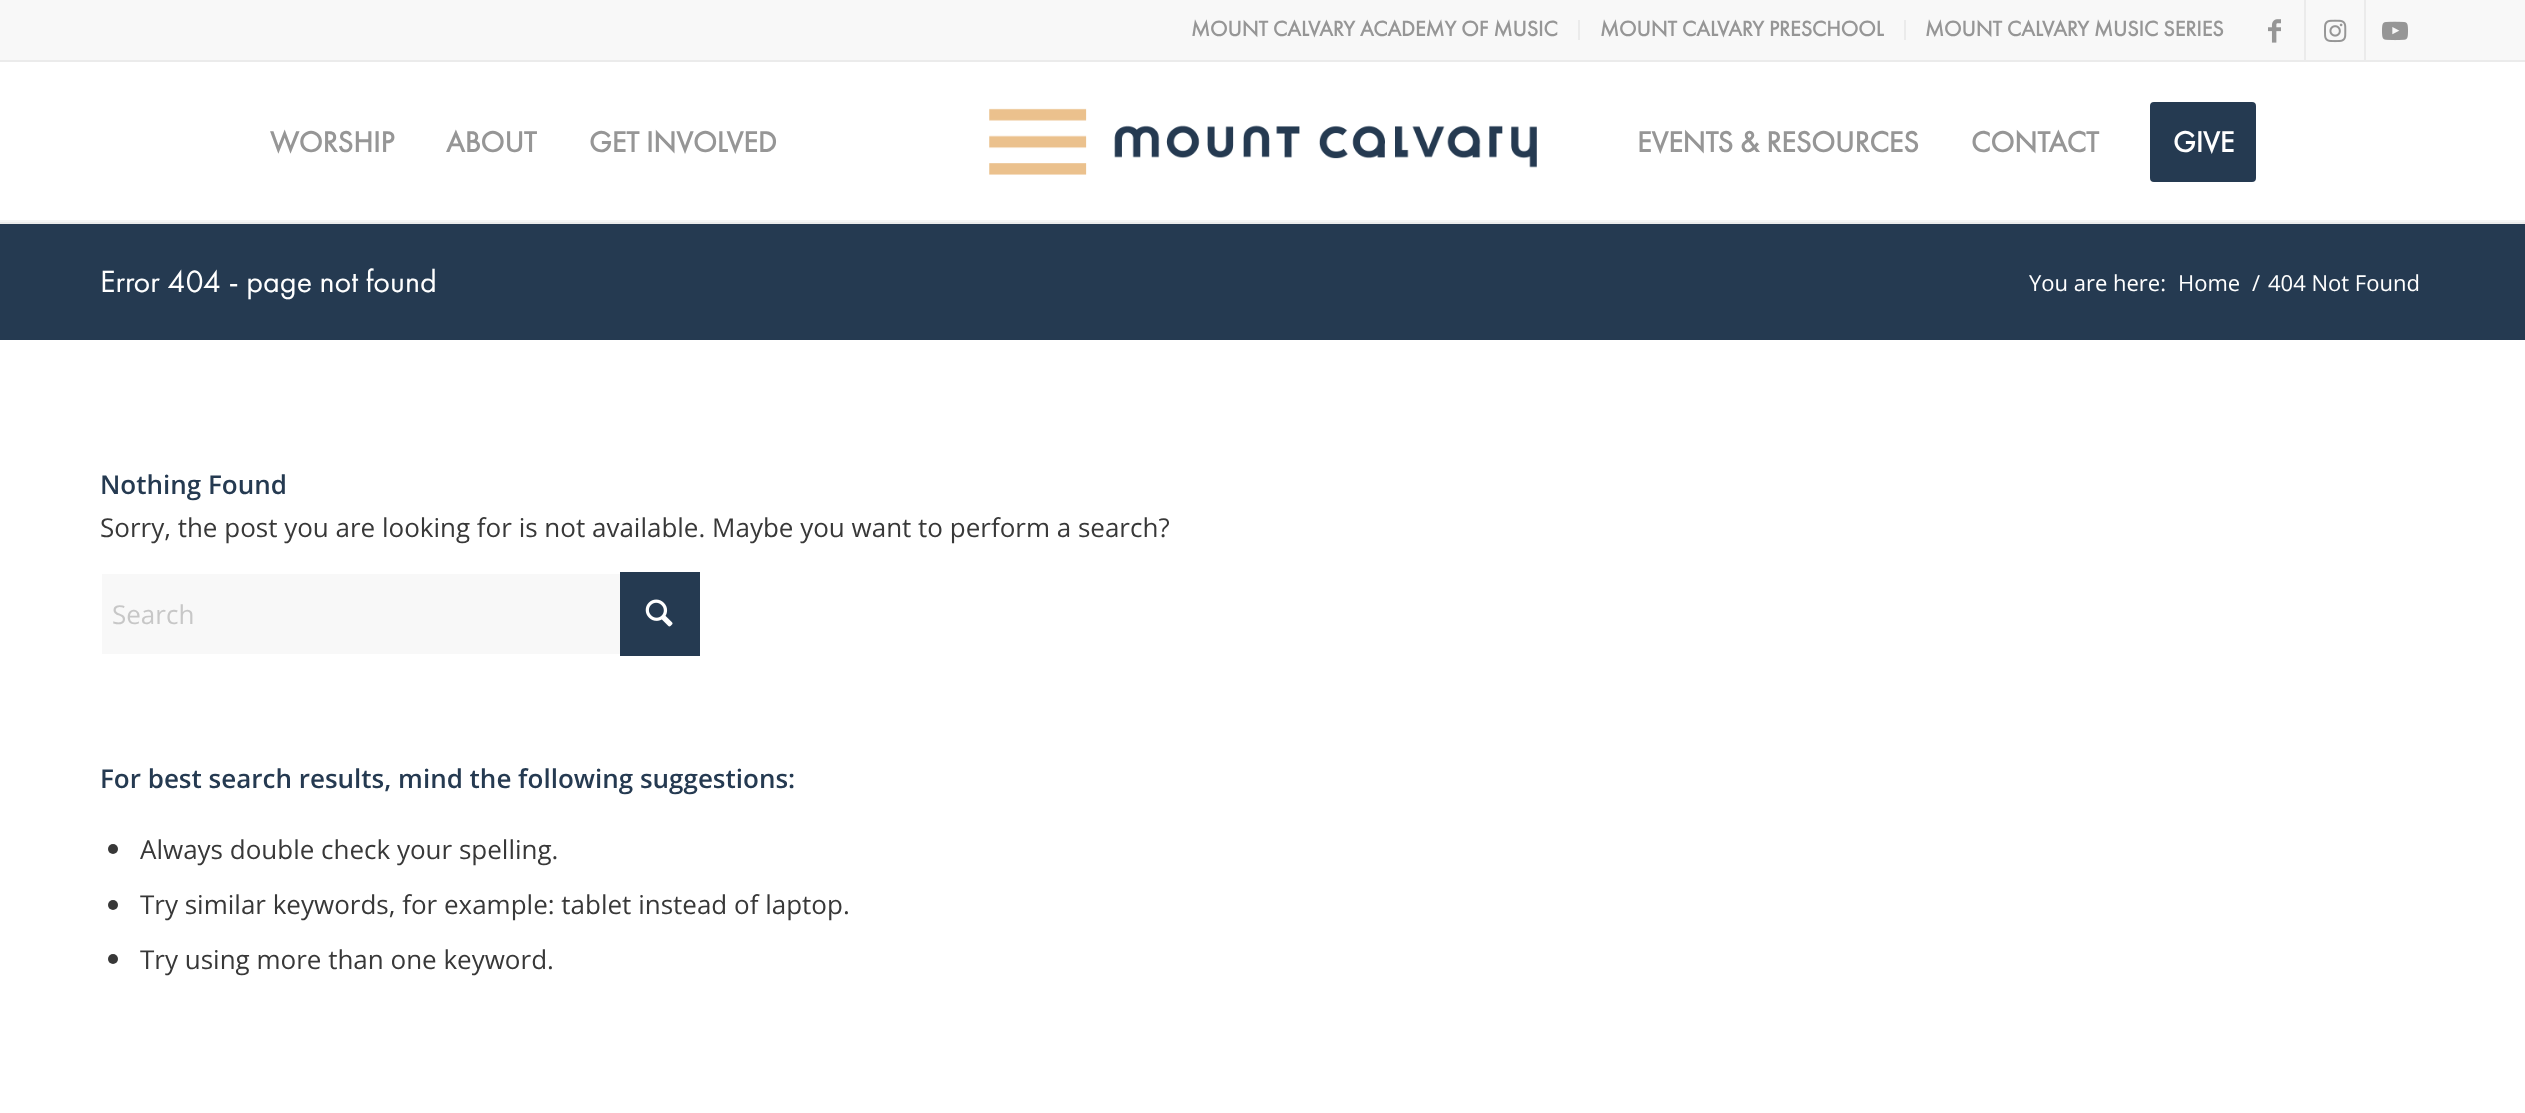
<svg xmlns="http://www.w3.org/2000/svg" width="2525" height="1113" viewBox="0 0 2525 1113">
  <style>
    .t1 { font: bold 22px Futura PT; fill: #969696; }
    .t2 { font: bold 30px Futura PT; fill: #969696; }
    .t3 { font: bold 30px Futura PT; fill: #fff; }
    .t4 { font: 32px Futura PT; fill: #fff; }
    .t5 { font: 22px Open Sans; fill: #fff; }
    .t6 { font: 600 26px Open Sans; fill: #253a51; }
    .t7 { font: 26px Open Sans; fill: #383838; }
    .t8 { font: 26px Open Sans; fill: #c7c7c7; }
  </style>
  <rect width="100%" height="100%" fill="#fff"/>
  <rect x="0" y="0" width="2525" height="60" fill="#f8f8f8"/>
  <rect x="0" y="60" width="2525" height="2" fill="#ebebeb"/>
  <rect x="1578" y="20" width="2" height="20" fill="#ebebeb"/>
  <text x="1191" y="36" class="t1">MOUNT CALVARY ACADEMY OF MUSIC</text>
  <rect x="1904" y="20" width="2" height="20" fill="#ebebeb"/>
  <text x="1600" y="36" class="t1">MOUNT CALVARY PRESCHOOL</text>
  <text x="1925" y="36" class="t1">MOUNT CALVARY MUSIC SERIES</text>
  <rect x="2304" y="0" width="2" height="60" fill="#ebebeb"/>
  <image x="2268" y="19" width="13" height="24" href="images/1.png"/>
  <rect x="2364" y="0" width="2" height="60" fill="#ebebeb"/>
  <image x="2324" y="19" width="23" height="24" href="images/2.png"/>
  <image x="2382" y="21" width="26" height="20" href="images/3.png"/>
  <rect x="0" y="222" width="2525" height="2" fill="#ebebeb"/>
  <image x="989" y="108" width="548" height="67" href="images/4.png"/>
  <text x="270" y="152" class="t2">WORSHIP</text>
  <text x="446" y="152" class="t2">ABOUT</text>
  <text x="589" y="152" class="t2">GET INVOLVED</text>
  <text x="1637" y="152" class="t2">EVENTS &amp; RESOURCES</text>
  <text x="1971" y="152" class="t2">CONTACT</text>
  <rect x="2152" y="104" width="102" height="76" rx="2" fill="#253a51" stroke="#253a51" stroke-width="4"/>
  <text x="2173" y="152" class="t3">GIVE</text>
  <rect x="0" y="224" width="2525" height="116" fill="#253a51"/>
  <rect x="0" y="220" width="2525" height="2" fill="#f5f5f5"/>
  <text x="100" y="292" class="t4">Error 404 - page not found</text>
  <text x="2029" y="291" class="t5">You are here:</text>
  <text x="2178" y="291" class="t5">Home</text>
  <text x="2252" y="291" class="t5">/</text>
  <text x="2268" y="291" class="t5">404 Not Found</text>
  <text x="100" y="494" class="t6">Nothing Found</text>
  <text x="100" y="537" class="t7">Sorry, the post you are looking for is not available. Maybe you want to perform a search?</text>
  <rect x="620" y="572" width="80" height="84" fill="#253a51"/>
  <rect x="102" y="574" width="518" height="80" fill="#f8f8f8"/>
  <text x="112" y="624" class="t8">Search</text>
  <image x="645" y="599" width="28" height="28" href="images/5.png"/>
  <text x="100" y="788" class="t6">For best search results, mind the following suggestions:</text>
  <circle cx="113" cy="849" r="5" fill="#383838"/>
  <text x="140" y="859" class="t7">Always double check your spelling.</text>
  <circle cx="113" cy="905" r="5" fill="#383838"/>
  <text x="140" y="914" class="t7">Try similar keywords, for example: tablet instead of laptop.</text>
  <circle cx="113" cy="959" r="5" fill="#383838"/>
  <text x="140" y="969" class="t7">Try using more than one keyword.</text>
</svg>
